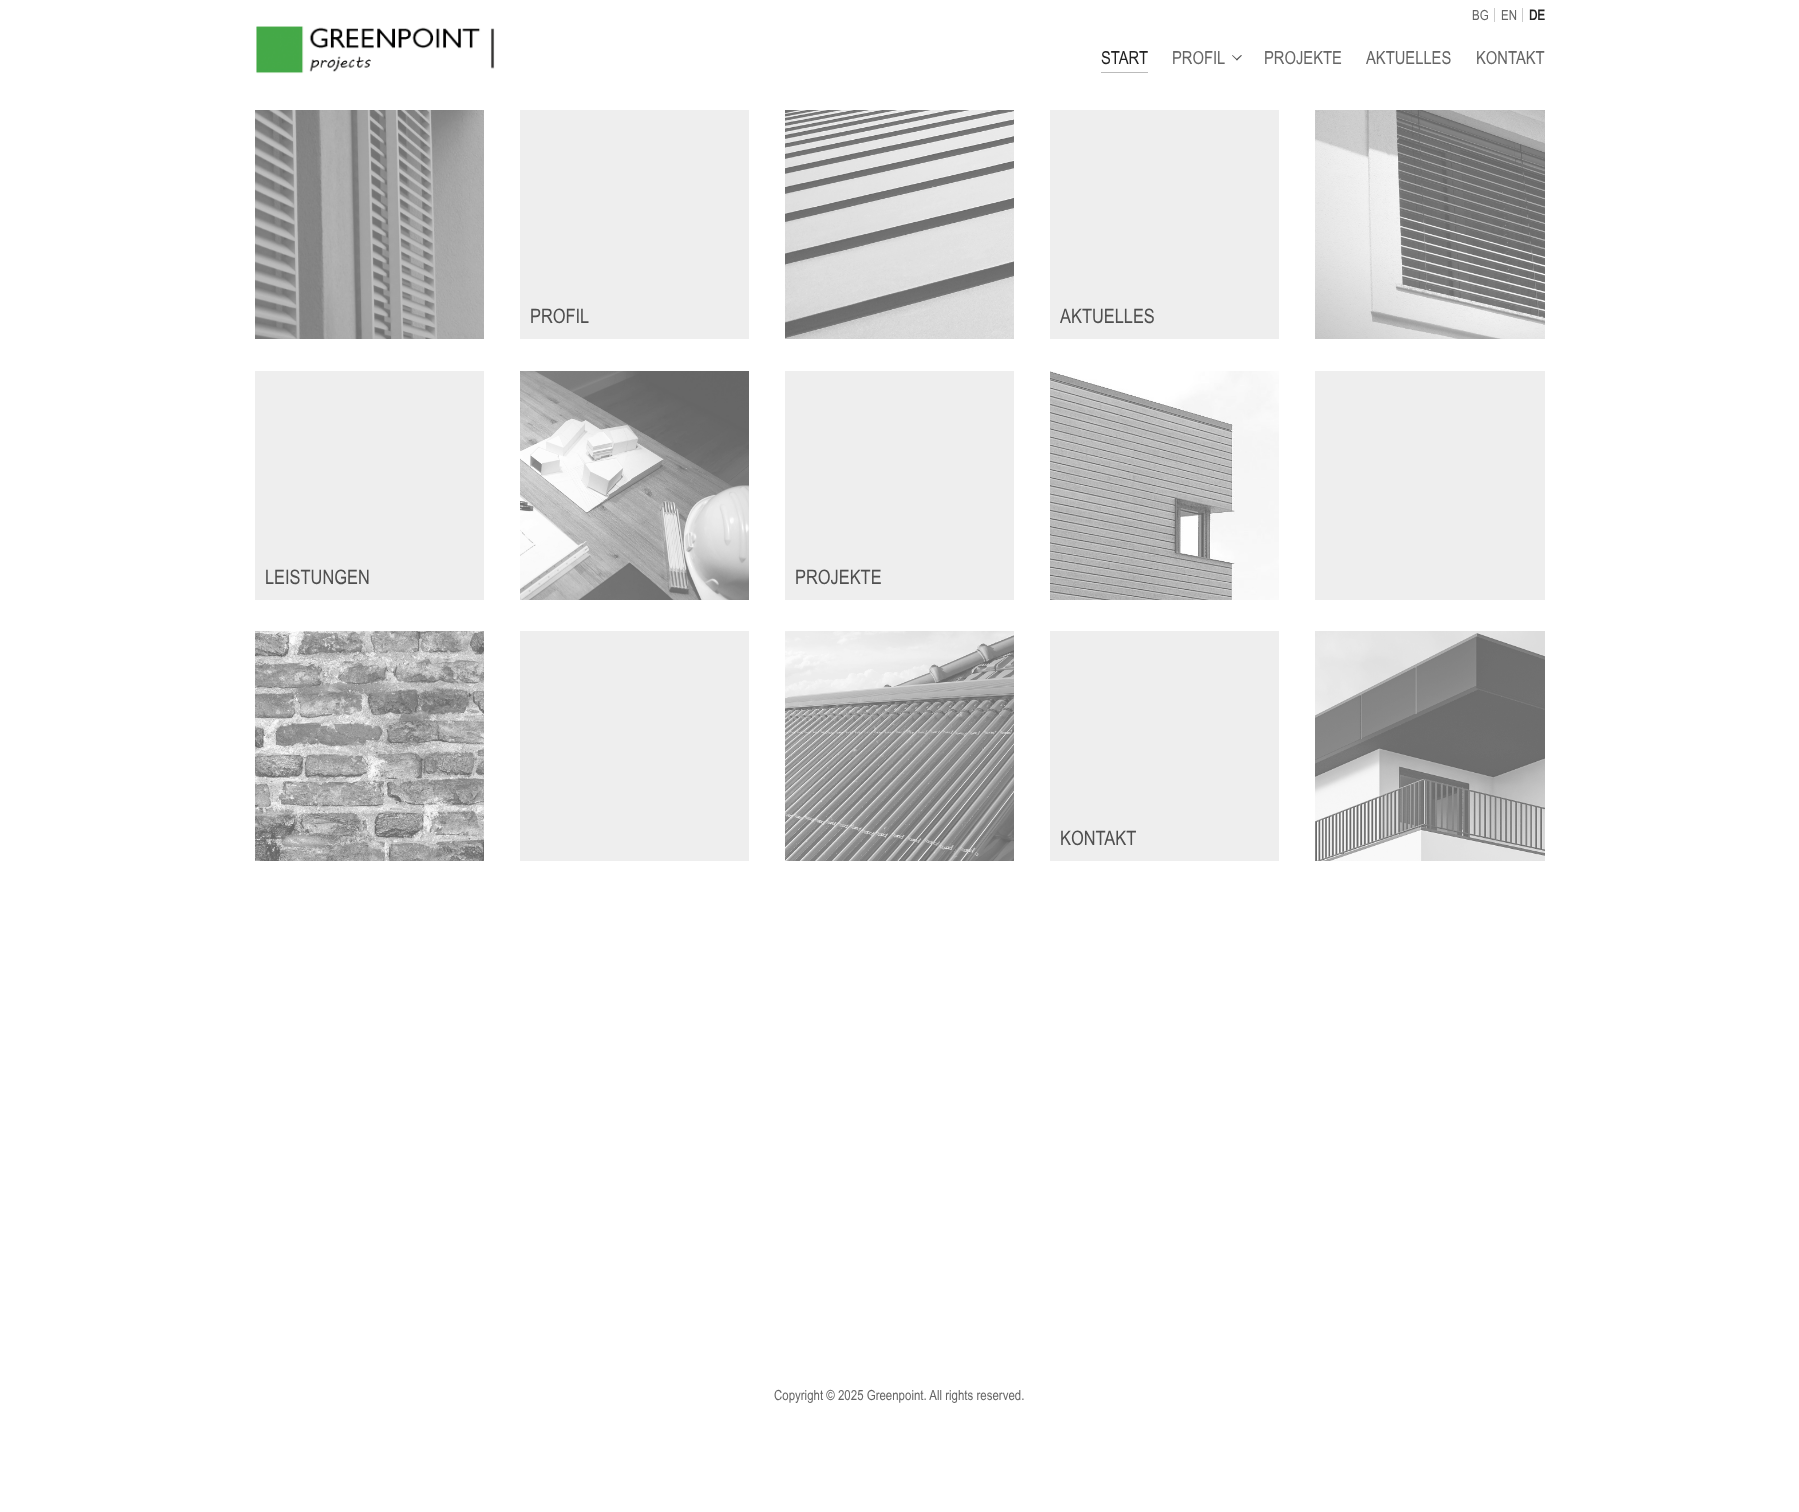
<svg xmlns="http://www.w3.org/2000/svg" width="1799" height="1512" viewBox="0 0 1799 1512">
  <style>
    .t1 { font: 14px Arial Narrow; fill: #666; }
    .t2 { font: bold 14px Arial Narrow; fill: #222; }
    .t3 { font: 18px Arial Narrow; fill: #222; }
    .t4 { font: 18px Arial Narrow; fill: #666; }
    .t5 { font: 20px Arial Narrow; fill: #4f4f4f; }
  </style>
  <rect width="100%" height="100%" fill="#fff"/>
  <rect x="1494" y="8" width="1" height="14" fill="#ccc"/>
  <text x="1472" y="20" class="t1">BG</text>
  <rect x="1522" y="8" width="1" height="14" fill="#ccc"/>
  <text x="1501" y="20" class="t1">EN</text>
  <text x="1529" y="20" class="t2">DE</text>
  <image x="256" y="26" width="239" height="48" href="images/1.png"/>
  <text x="1101" y="64" class="t3">START</text>
  <rect x="1101" y="72" width="47" height="1" fill="#bbb"/>
  <text x="1172" y="64" class="t4">PROFIL</text>
  <path d="M1241 55L1242 55.5L1237 60.5L1236 59.5Z" fill="#555"/>
  <path d="M1232.5 55L1237.5 59.5L1237 60.5L1232 55.5Z" fill="#555"/>
  <text x="1264" y="64" class="t4">PROJEKTE</text>
  <text x="1366" y="64" class="t4">AKTUELLES</text>
  <text x="1476" y="64" class="t4">KONTAKT</text>
  <image x="255" y="110" width="229" height="229" href="images/2.png"/>
  <rect x="520" y="110" width="229" height="229" fill="#eee"/>
  <text x="530" y="323" class="t5">PROFIL</text>
  <image x="785" y="110" width="229" height="229" href="images/3.png"/>
  <rect x="1050" y="110" width="229" height="229" fill="#eee"/>
  <text x="1060" y="323" class="t5">AKTUELLES</text>
  <image x="1315" y="110" width="230" height="229" href="images/4.png"/>
  <rect x="255" y="371" width="229" height="229" fill="#eee"/>
  <text x="265" y="584" class="t5">LEISTUNGEN</text>
  <image x="520" y="371" width="229" height="229" href="images/5.png"/>
  <rect x="785" y="371" width="229" height="229" fill="#eee"/>
  <text x="795" y="584" class="t5">PROJEKTE</text>
  <image x="1050" y="371" width="229" height="229" href="images/6.png"/>
  <rect x="1315" y="371" width="230" height="229" fill="#eee"/>
  <image x="255" y="631" width="229" height="230" href="images/7.png"/>
  <rect x="520" y="631" width="229" height="230" fill="#eee"/>
  <image x="785" y="631" width="229" height="230" href="images/8.png"/>
  <rect x="1050" y="631" width="229" height="230" fill="#eee"/>
  <text x="1060" y="845" class="t5">KONTAKT</text>
  <image x="1315" y="631" width="230" height="230" href="images/9.png"/>
  <text x="774" y="1400" class="t1">Copyright © 2025 Greenpoint. All rights reserved.</text>
</svg>
